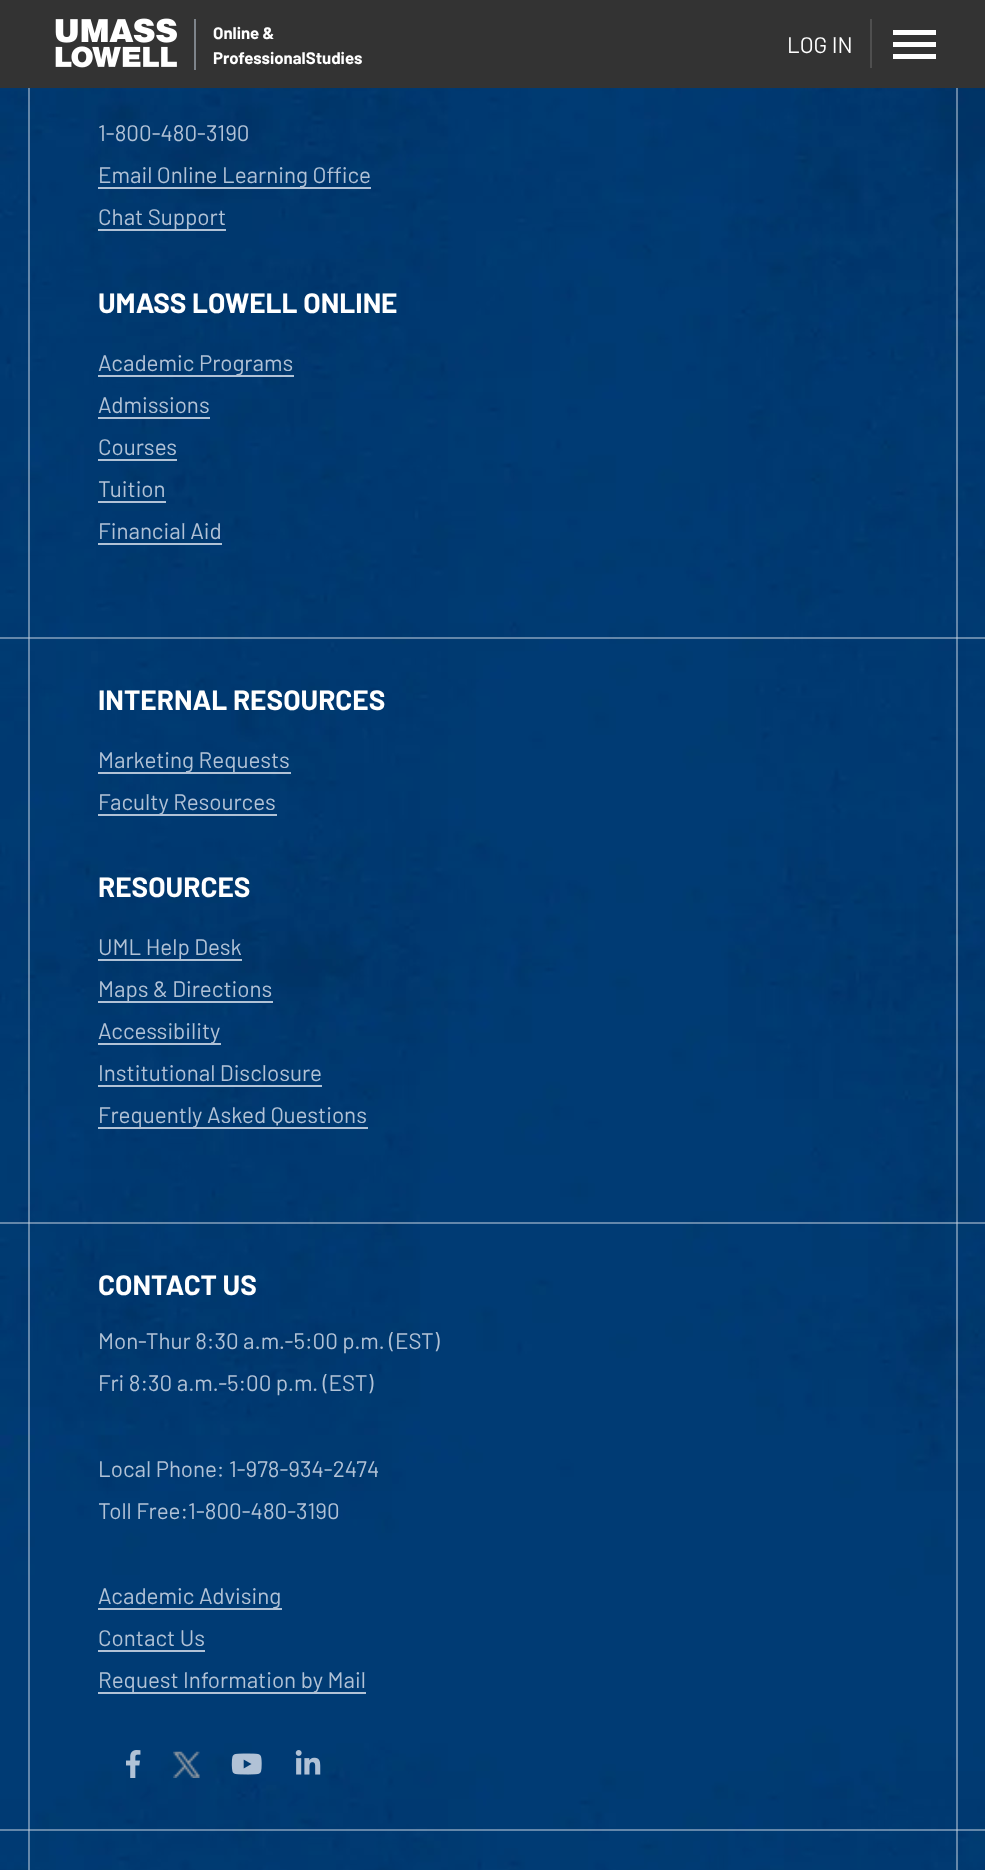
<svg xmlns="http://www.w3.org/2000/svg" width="985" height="1870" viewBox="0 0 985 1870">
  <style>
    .t1 { font: bold 16.75px Barlow; fill: #fff; }
    .t2 { font: 22.4px Barlow; fill: #fff; }
    .t3 { font: 22.4px Barlow; fill: #b1c2d6; }
    .t4 { font: bold 28px Barlow; fill: #fff; }
  </style>
  <rect width="100%" height="100%" fill="#fff"/>
  <rect x="0" y="0" width="985" height="88" fill="#333"/>
  <image x="55" y="18" width="122" height="50" href="images/1.png"/>
  <rect x="194" y="19" width="2" height="51" fill="#7e848b"/>
  <text x="213" y="39" class="t1">Online &amp;</text>
  <text x="213" y="64" class="t1">ProfessionalStudies</text>
  <rect x="870" y="19" width="2" height="49" fill="#4f4f4f"/>
  <text x="787" y="53" class="t2">LOG IN</text>
  <rect x="893" y="30" width="43" height="5" fill="#fff"/>
  <rect x="893" y="42" width="43" height="5" fill="#fff"/>
  <rect x="893" y="54" width="43" height="5" fill="#fff"/>
  <image x="0" y="88" width="985" height="1782" href="images/2.png"/>
  <rect x="0" y="637" width="985" height="2" fill="#c8d4e280"/>
  <rect x="0" y="1222" width="985" height="2" fill="#c8d4e280"/>
  <rect x="0" y="1829" width="985" height="2" fill="#c8d4e280"/>
  <rect x="956" y="88" width="2" height="1782" fill="#c8d4e280"/>
  <rect x="28" y="88" width="2" height="1782" fill="#c8d4e280"/>
  <text x="98" y="141" class="t3">1-800-480-3190</text>
  <rect x="98" y="187" width="273" height="2" fill="#b1c2d6"/>
  <text x="98" y="183" class="t3">Email Online Learning Office</text>
  <rect x="98" y="229" width="128" height="2" fill="#b1c2d6"/>
  <text x="98" y="225" class="t3">Chat Support</text>
  <text x="98" y="313" class="t4">UMASS LOWELL ONLINE</text>
  <rect x="98" y="375" width="196" height="2" fill="#b1c2d6"/>
  <text x="98" y="371" class="t3">Academic Programs</text>
  <text x="98" y="413" class="t3">Admissions</text>
  <rect x="98" y="417" width="112" height="2" fill="#b1c2d6"/>
  <text x="98" y="455" class="t3">Courses</text>
  <rect x="98" y="459" width="79" height="2" fill="#b1c2d6"/>
  <text x="98" y="497" class="t3">Tuition</text>
  <rect x="98" y="501" width="68" height="2" fill="#b1c2d6"/>
  <text x="98" y="539" class="t3">Financial Aid</text>
  <rect x="98" y="543" width="124" height="2" fill="#b1c2d6"/>
  <text x="98" y="710" class="t4">INTERNAL RESOURCES</text>
  <rect x="98" y="772" width="193" height="2" fill="#b1c2d6"/>
  <text x="98" y="768" class="t3">Marketing Requests</text>
  <rect x="98" y="814" width="179" height="2" fill="#b1c2d6"/>
  <text x="98" y="810" class="t3">Faculty Resources</text>
  <text x="98" y="897" class="t4">RESOURCES</text>
  <rect x="98" y="959" width="144" height="2" fill="#b1c2d6"/>
  <text x="98" y="955" class="t3">UML Help Desk</text>
  <rect x="98" y="1001" width="175" height="2" fill="#b1c2d6"/>
  <text x="98" y="997" class="t3">Maps &amp; Directions</text>
  <rect x="98" y="1043" width="123" height="2" fill="#b1c2d6"/>
  <text x="98" y="1039" class="t3">Accessibility</text>
  <text x="98" y="1081" class="t3">Institutional Disclosure</text>
  <rect x="98" y="1085" width="224" height="2" fill="#b1c2d6"/>
  <rect x="98" y="1127" width="270" height="2" fill="#b1c2d6"/>
  <text x="98" y="1123" class="t3">Frequently Asked Questions</text>
  <text x="98" y="1295" class="t4">CONTACT US</text>
  <text x="98" y="1349" class="t3">Mon-Thur 8:30 a.m.-5:00 p.m. (EST)</text>
  <text x="98" y="1391" class="t3">Fri 8:30 a.m.-5:00 p.m. (EST)</text>
  <text x="98" y="1477" class="t3">Local Phone: 1-978-934-2474</text>
  <text x="98" y="1519" class="t3">Toll Free:1-800-480-3190</text>
  <rect x="98" y="1608" width="184" height="2" fill="#b1c2d6"/>
  <text x="98" y="1604" class="t3">Academic Advising</text>
  <text x="98" y="1646" class="t3">Contact Us</text>
  <rect x="98" y="1650" width="107" height="2" fill="#b1c2d6"/>
  <rect x="98" y="1692" width="268" height="2" fill="#b1c2d6"/>
  <text x="98" y="1688" class="t3">Request Information by Mail</text>
  <image x="126" y="1750" width="15" height="28" href="images/3.png"/>
  <image x="173" y="1751" width="27" height="27" href="images/4.png"/>
  <image x="231" y="1753" width="31" height="22" href="images/5.png"/>
  <image x="295" y="1750" width="26" height="25" href="images/6.png"/>
</svg>
